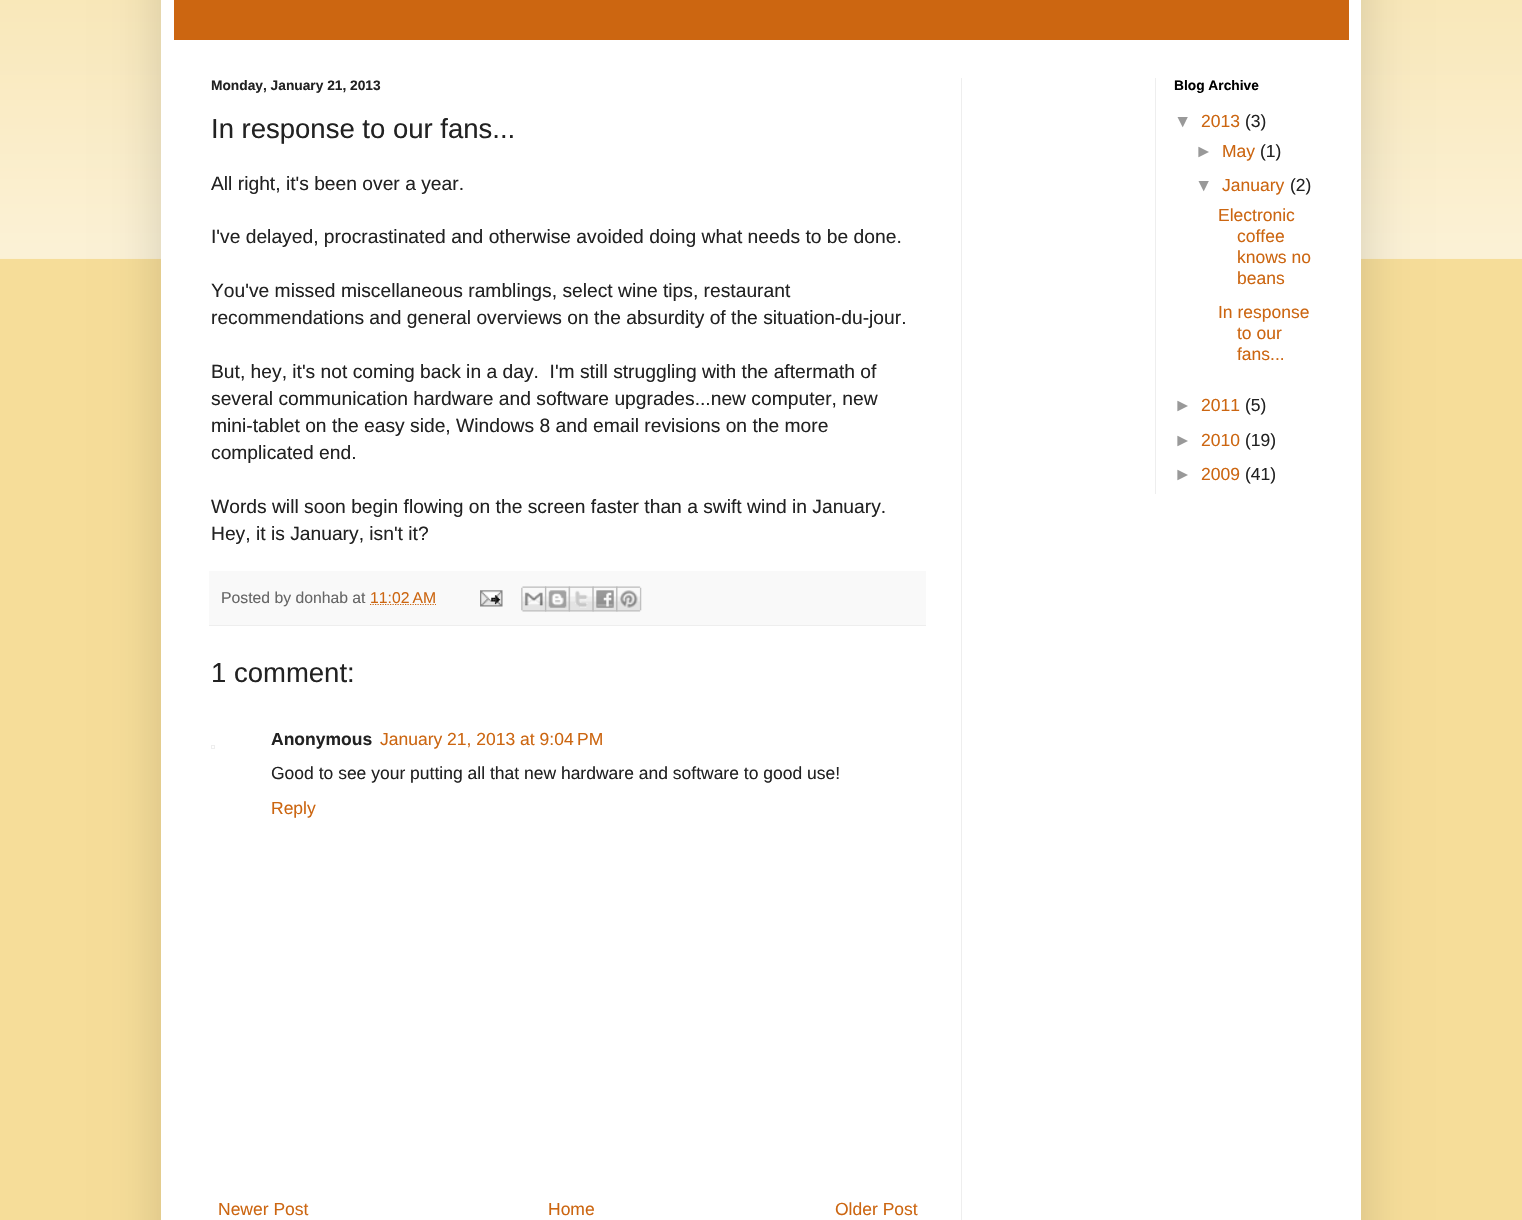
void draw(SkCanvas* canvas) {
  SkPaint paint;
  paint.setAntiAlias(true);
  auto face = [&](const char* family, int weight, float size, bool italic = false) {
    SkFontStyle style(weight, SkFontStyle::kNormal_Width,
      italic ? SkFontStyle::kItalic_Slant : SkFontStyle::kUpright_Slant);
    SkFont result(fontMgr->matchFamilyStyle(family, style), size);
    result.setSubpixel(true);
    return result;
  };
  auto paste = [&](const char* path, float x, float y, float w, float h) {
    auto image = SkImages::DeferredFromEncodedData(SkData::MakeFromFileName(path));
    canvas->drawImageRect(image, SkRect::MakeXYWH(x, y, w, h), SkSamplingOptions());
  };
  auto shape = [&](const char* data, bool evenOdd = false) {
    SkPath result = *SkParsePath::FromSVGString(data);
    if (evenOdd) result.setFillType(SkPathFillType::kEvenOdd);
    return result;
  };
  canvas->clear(0xfff6dd99);
  paste("img/1.png", 0, 0, 1522, 259);
  paint.setColor(0x26000000);
  paint.setMaskFilter(SkMaskFilter::MakeBlur(kNormal_SkBlurStyle, 25));
  canvas->drawRect(SkRect::MakeXYWH(161, -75, 1200, 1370), paint);
  paint.setMaskFilter(nullptr);
  {
    const struct { float x, y, w, h; SkColor color; } items[] = {
      {161, 0, 1200, 1220, 0xffffffff},
      {174, 0, 1175, 40, 0xffcc6611},
      {961, 78, 1, 1142, 0xffeeeeee},
      {209, 571, 717, 54, 0xfff9f9f9},
      {209, 625, 717, 1, 0xffeeeeee},
    };
    for (auto [x, y, w, h, color] : items) {
      paint.setColor(color);
      canvas->drawRect(SkRect::MakeXYWH(x, y, w, h), paint);
    }
  }
  paint.setStroke(true);
  paint.setStrokeWidth(1.2f);
  paint.setColor(0xffcc6611);
  paint.setPathEffect(SkDashPathEffect::Make({{1.25f, 1.25f}}, 0));
  canvas->drawPath(shape("M370 604.5H436"), paint);
  paint.setPathEffect(nullptr);
  paste("img/2.png", 480, 590, 23, 17);
  paste("img/3.png", 521, 586, 26, 26);
  paste("img/4.png", 545, 586, 25, 26);
  paste("img/5.png", 568, 586, 26, 26);
  paste("img/6.png", 592, 586, 26, 26);
  paste("img/7.png", 616, 586, 26, 26);
  paint.setStrokeWidth(1);
  paint.setColor(0xffeeeeee);
  canvas->drawRect(SkRect::MakeXYWH(211.5f, 745.5f, 3, 3), paint);
  paint.setStroke(false);
  canvas->drawRect(SkRect::MakeXYWH(1155, 78, 1, 416), paint);
  auto f0 = face("Liberation Sans", 700, 13.75f);
  paint.setColor(0xff222222);
  canvas->drawString("Monday, January 21, 2013", 211, 90, f0, paint);
  auto f1 = face("Liberation Sans", 400, 27.5f);
  canvas->drawString("In response to our fans...", 211, 138, f1, paint);
  auto f2 = face("Liberation Sans", 400, 19.25f);
  {
    const struct { const char* s; float x, y; } items[] = {
      {"All right, it's been over a year.", 211, 190},
      {"I've delayed, procrastinated and otherwise avoided doing what needs to be done.", 211, 243},
      {"You've missed miscellaneous ramblings, select wine tips, restaurant", 211, 297},
      {"recommendations and general overviews on the absurdity of the situation-du-jour.", 211, 324},
      {"But, hey, it's not coming back in a day.  I'm still struggling with the aftermath of", 211, 378},
      {"several communication hardware and software upgrades...new computer, new", 211, 405},
      {"mini-tablet on the easy side, Windows 8 and email revisions on the more", 211, 432},
      {"complicated end.", 211, 459},
      {"Words will soon begin flowing on the screen faster than a swift wind in January.", 211, 513},
      {"Hey, it is January, isn't it?", 211, 540},
    };
    for (auto [s, x, y] : items) {
      canvas->drawString(s, x, y, f2, paint);
    }
  }
  auto f3 = face("Liberation Sans", 400, 15.75f);
  paint.setColor(0xff666666);
  canvas->drawString("Posted by donhab at", 221, 603, f3, paint);
  paint.setColor(0xffcc6611);
  canvas->drawString("11:02 AM", 370, 603, f3, paint);
  paint.setColor(0xff222222);
  canvas->drawString("1 comment:", 211, 682, f1, paint);
  auto f4 = face("Liberation Sans", 700, 17.5f);
  canvas->drawString("Anonymous", 271, 745, f4, paint);
  auto f5 = face("Liberation Sans", 400, 17.5f);
  paint.setColor(0xffcc6611);
  canvas->drawString("January 21, 2013 at 9:04 PM", 380, 745, f5, paint);
  paint.setColor(0xff222222);
  canvas->drawString("Good to see your putting all that new hardware and software to good use!", 271, 779, f5, paint);
  paint.setColor(0xffcc6611);
  {
    const struct { const char* s; float x, y; } items[] = {
      {"Reply", 271, 814},
      {"Newer Post", 218, 1215},
      {"Home", 548, 1215},
      {"Older Post", 835, 1215},
    };
    for (auto [s, x, y] : items) {
      canvas->drawString(s, x, y, f5, paint);
    }
  }
  paint.setColor(0xff000000);
  canvas->drawString("Blog Archive", 1174, 90, f0, paint);
  paint.setColor(0xff999999);
  canvas->drawString("▼", 1174, 127, f5, paint);
  paint.setColor(0xffcc6611);
  canvas->drawString("2013", 1201, 127, f5, paint);
  paint.setColor(0xff222222);
  canvas->drawString("(3)", 1245, 127, f5, paint);
  paint.setColor(0xff999999);
  canvas->drawString("►", 1195, 157, f5, paint);
  paint.setColor(0xffcc6611);
  canvas->drawString("May", 1222, 157, f5, paint);
  paint.setColor(0xff222222);
  canvas->drawString("(1)", 1260, 157, f5, paint);
  paint.setColor(0xff999999);
  canvas->drawString("▼", 1195, 191, f5, paint);
  paint.setColor(0xffcc6611);
  canvas->drawString("January", 1222, 191, f5, paint);
  paint.setColor(0xff222222);
  canvas->drawString("(2)", 1290, 191, f5, paint);
  paint.setColor(0xffcc6611);
  {
    const struct { const char* s; float x, y; } items[] = {
      {"Electronic", 1218, 221},
      {"coffee", 1237, 242},
      {"knows no", 1237, 263},
      {"beans", 1237, 284},
      {"In response", 1218, 318},
      {"to our", 1237, 339},
      {"fans...", 1237, 360},
    };
    for (auto [s, x, y] : items) {
      canvas->drawString(s, x, y, f5, paint);
    }
  }
  paint.setColor(0xff999999);
  canvas->drawString("►", 1174, 411, f5, paint);
  paint.setColor(0xffcc6611);
  canvas->drawString("2011", 1201, 411, f5, paint);
  paint.setColor(0xff222222);
  canvas->drawString("(5)", 1245, 411, f5, paint);
  paint.setColor(0xff999999);
  canvas->drawString("►", 1174, 446, f5, paint);
  paint.setColor(0xffcc6611);
  canvas->drawString("2010", 1201, 446, f5, paint);
  paint.setColor(0xff222222);
  canvas->drawString("(19)", 1245, 446, f5, paint);
  paint.setColor(0xff999999);
  canvas->drawString("►", 1174, 480, f5, paint);
  paint.setColor(0xffcc6611);
  canvas->drawString("2009", 1201, 480, f5, paint);
  paint.setColor(0xff222222);
  canvas->drawString("(41)", 1245, 480, f5, paint);
}
